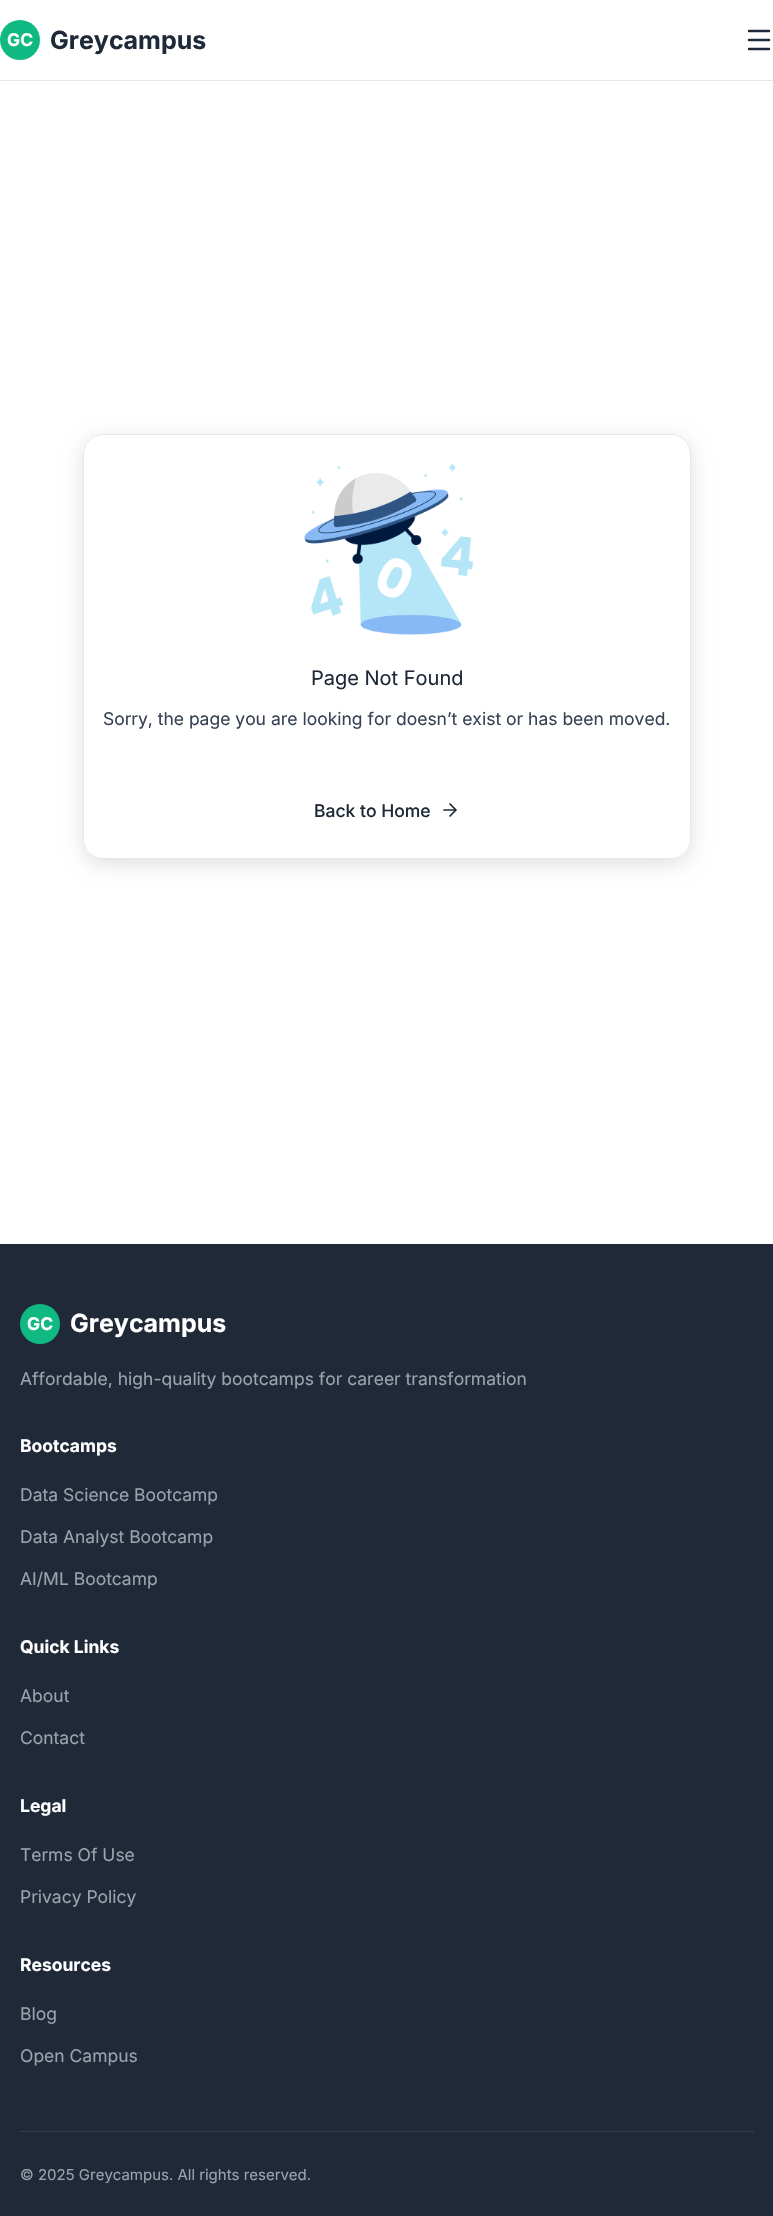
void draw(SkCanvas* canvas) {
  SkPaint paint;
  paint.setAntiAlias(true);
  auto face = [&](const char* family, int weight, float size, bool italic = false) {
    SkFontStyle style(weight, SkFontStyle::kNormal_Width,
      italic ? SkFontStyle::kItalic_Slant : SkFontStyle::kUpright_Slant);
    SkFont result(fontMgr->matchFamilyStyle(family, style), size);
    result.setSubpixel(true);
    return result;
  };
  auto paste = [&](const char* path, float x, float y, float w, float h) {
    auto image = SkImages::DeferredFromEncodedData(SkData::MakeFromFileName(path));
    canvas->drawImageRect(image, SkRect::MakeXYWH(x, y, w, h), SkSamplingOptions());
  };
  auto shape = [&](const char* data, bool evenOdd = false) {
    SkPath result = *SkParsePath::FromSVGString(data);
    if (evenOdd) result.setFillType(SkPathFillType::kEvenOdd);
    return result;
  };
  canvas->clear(0xffffffff);
  paint.setColor(0xffe5e7eb);
  canvas->drawRect(SkRect::MakeXYWH(0, 80, 773, 1), paint);
  paint.setColor(0xff10b981);
  canvas->drawCircle(20, 40, 20, paint);
  paint.setStroke(true);
  paint.setStrokeWidth(2.5f);
  paint.setStrokeCap(SkPaint::kRound_Cap);
  paint.setStrokeJoin(SkPaint::kRound_Join);
  paint.setColor(0xff1e2939);
  canvas->drawPath(shape("M749 31H769M749 40H769M749 49H769"), paint);
  canvas->save();
  canvas->clipPath(shape("M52 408H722V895H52ZM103 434H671C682 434 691 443 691 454V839C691 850 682 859 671 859H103C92 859 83 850 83 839V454C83 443 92 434 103 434Z", true), true);
  paint.setStroke(false);
  paint.setColor(0x1f000000);
  paint.setMaskFilter(SkMaskFilter::MakeBlur(kNormal_SkBlurStyle, 10));
  canvas->drawRoundRect(SkRect::MakeXYWH(83, 439, 608, 425), 20, 20, paint);
  paint.setMaskFilter(nullptr);
  canvas->restore();
  paint.setStroke(true);
  paint.setStrokeWidth(1);
  paint.setStrokeCap(SkPaint::kButt_Cap);
  paint.setStrokeJoin(SkPaint::kMiter_Join);
  paint.setColor(0xffe5e7eb);
  canvas->drawRoundRect(SkRect::MakeXYWH(83.5f, 434.5f, 607, 424), 19.5f, 19.5f, paint);
  paste("img/1.png", 304, 463, 170, 172);
  paint.setStrokeWidth(1.7f);
  paint.setStrokeCap(SkPaint::kRound_Cap);
  paint.setStrokeJoin(SkPaint::kRound_Join);
  paint.setColor(0xff1e2939);
  canvas->drawPath(shape("M444 810H456M450 804L456 810L450 816"), paint);
  paint.setStroke(false);
  paint.setColor(0xff1f2937);
  canvas->drawRect(SkRect::MakeXYWH(0, 1244, 773, 972), paint);
  paint.setColor(0xff10b981);
  canvas->drawCircle(40, 1324, 20, paint);
  paint.setColor(0xff353e4b);
  canvas->drawRect(SkRect::MakeXYWH(20, 2131, 734, 1), paint);
  auto f0 = face("Inter", 700, 17.5f);
  paint.setColor(0xffffffff);
  canvas->drawString("GC", 7, 46, f0, paint);
  auto f1 = face("Inter", 700, 25);
  paint.setColor(0xff1e2939);
  canvas->drawString("Greycampus", 50, 49, f1, paint);
  auto f2 = face("Inter", 400, 20);
  canvas->drawString("Page Not Found", 311, 685, f2, paint);
  auto f3 = face("Inter", 400, 17.5f);
  paint.setColor(0xff364153);
  canvas->drawString("Sorry, the page you are looking for doesn’t exist or has been moved.", 103, 725, f3, paint);
  auto f4 = face("Inter", 500, 17.5f);
  paint.setColor(0xff1e2939);
  canvas->drawString("Back to Home", 314, 817, f4, paint);
  paint.setColor(0xffffffff);
  canvas->drawString("GC", 27, 1330, f0, paint);
  canvas->drawString("Greycampus", 70, 1332, f1, paint);
  paint.setColor(0xff9ca3af);
  canvas->drawString("Affordable, high-quality bootcamps for career transformation", 20, 1385, f3, paint);
  paint.setColor(0xffffffff);
  canvas->drawString("Bootcamps", 20, 1452, f0, paint);
  paint.setColor(0xff9ca3af);
  {
    const struct { const char* s; float x, y; } items[] = {
      {"Data Science Bootcamp", 20, 1501},
      {"Data Analyst Bootcamp", 20, 1543},
      {"AI/ML Bootcamp", 20, 1585},
    };
    for (auto [s, x, y] : items) {
      canvas->drawString(s, x, y, f3, paint);
    }
  }
  paint.setColor(0xffffffff);
  canvas->drawString("Quick Links", 20, 1653, f0, paint);
  paint.setColor(0xff9ca3af);
  canvas->drawString("About", 20, 1702, f3, paint);
  canvas->drawString("Contact", 20, 1744, f3, paint);
  paint.setColor(0xffffffff);
  canvas->drawString("Legal", 20, 1812, f0, paint);
  paint.setColor(0xff9ca3af);
  canvas->drawString("Terms Of Use", 20, 1861, f3, paint);
  canvas->drawString("Privacy Policy", 20, 1903, f3, paint);
  paint.setColor(0xffffffff);
  canvas->drawString("Resources", 20, 1971, f0, paint);
  paint.setColor(0xff9ca3af);
  canvas->drawString("Blog", 20, 2020, f3, paint);
  canvas->drawString("Open Campus", 20, 2062, f3, paint);
  auto f5 = face("Inter", 400, 15);
  canvas->drawString("© 2025 Greycampus. All rights reserved.", 20, 2180, f5, paint);
}
